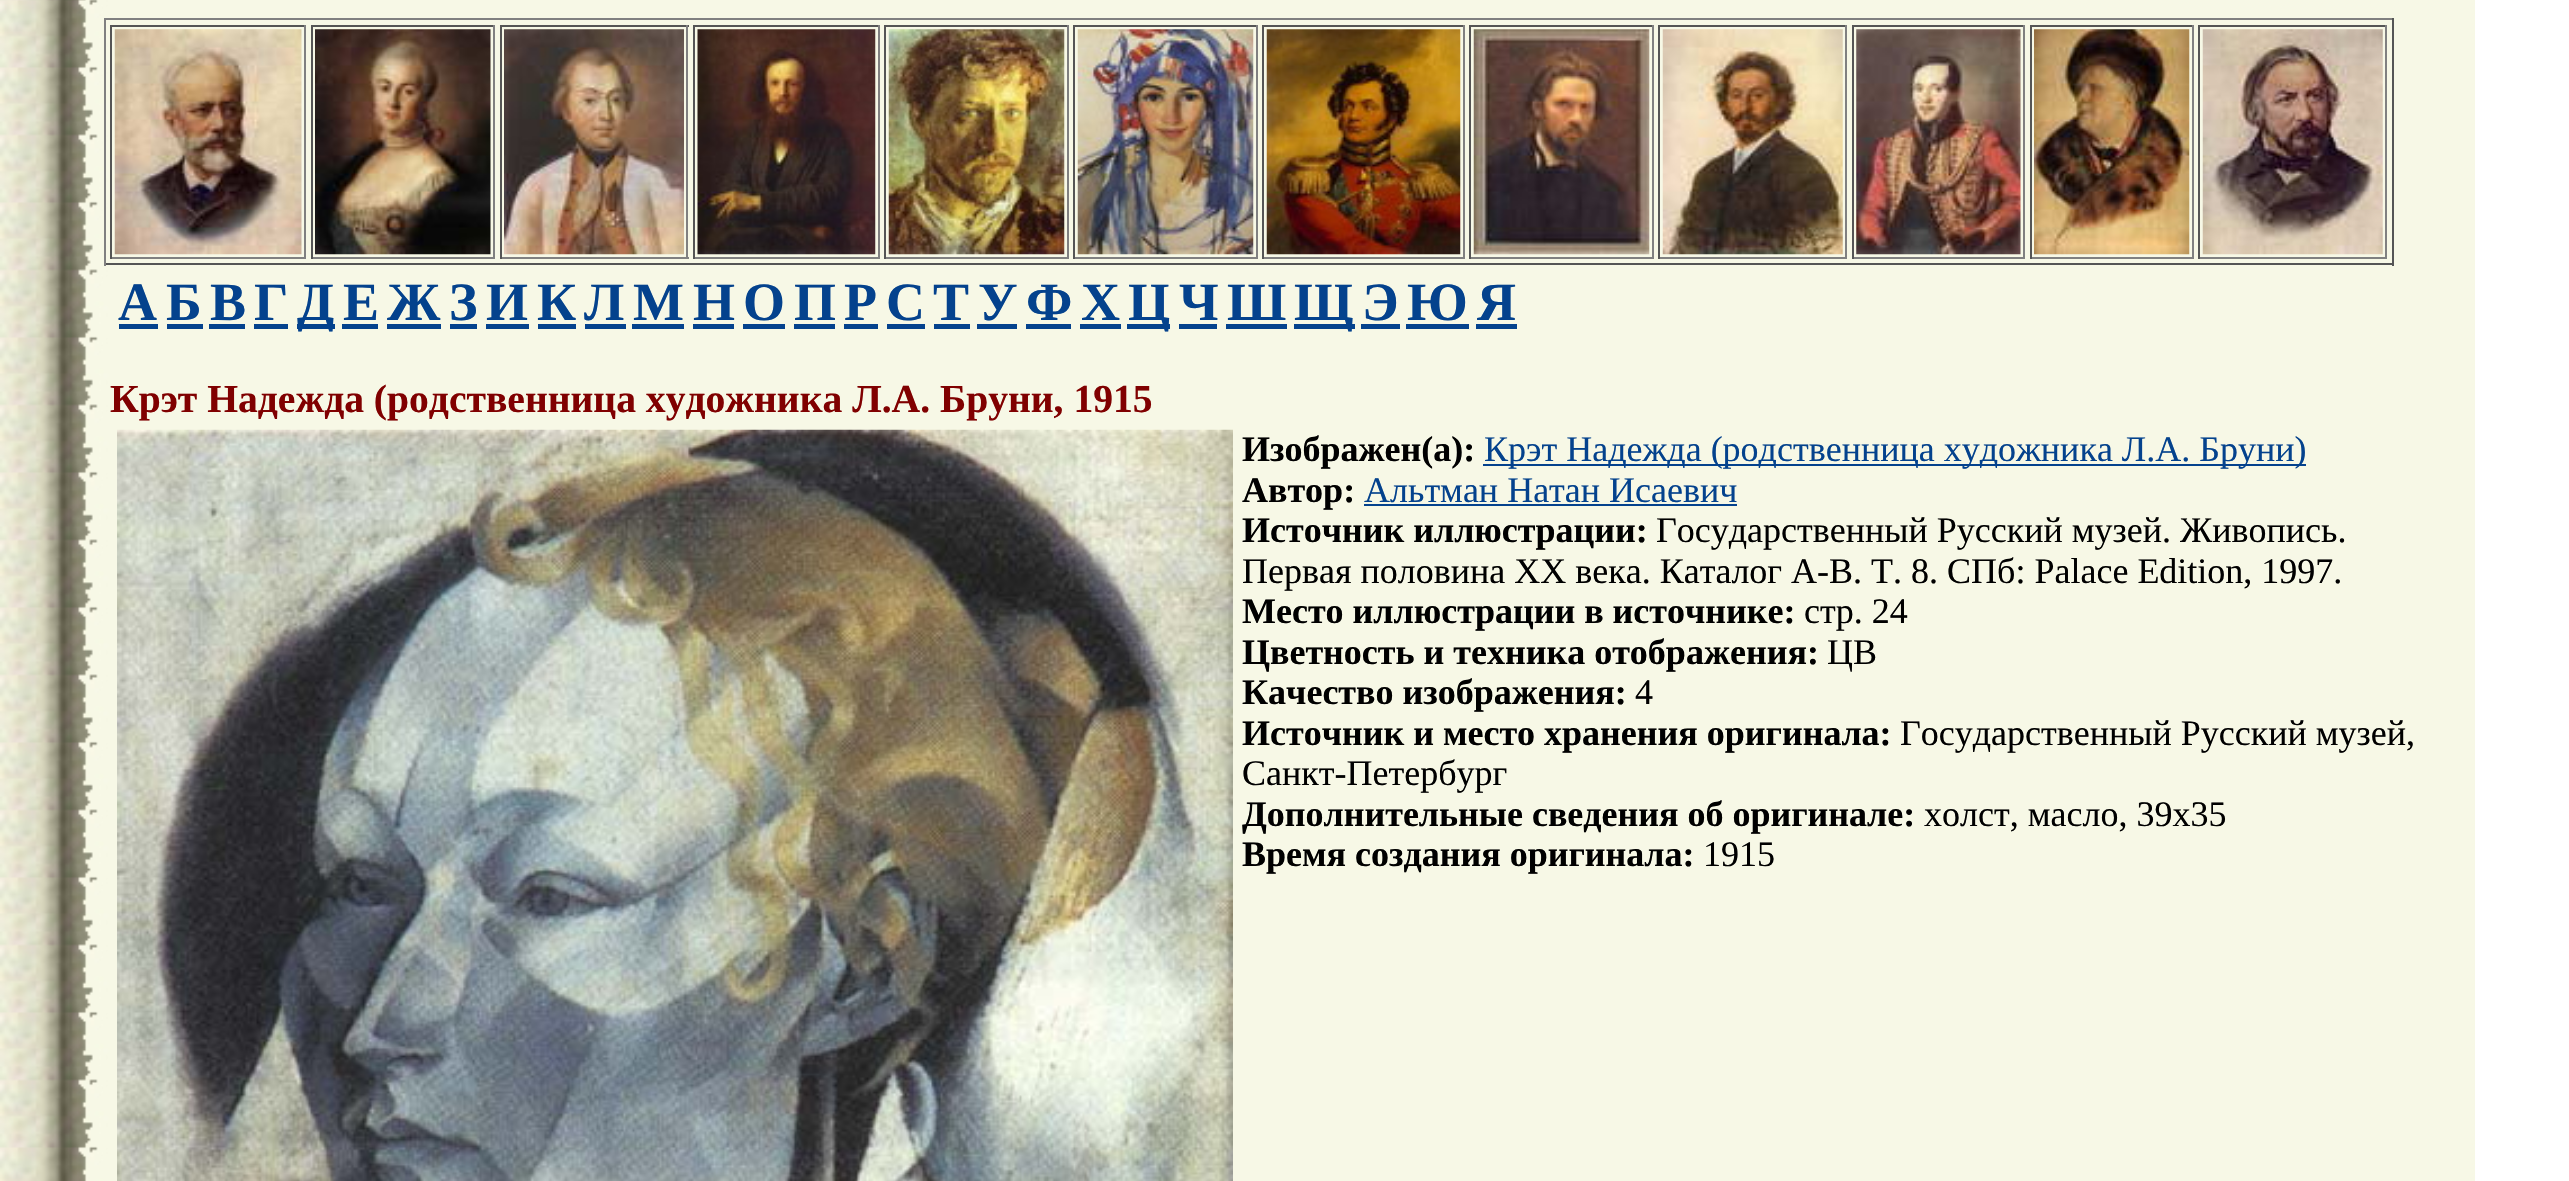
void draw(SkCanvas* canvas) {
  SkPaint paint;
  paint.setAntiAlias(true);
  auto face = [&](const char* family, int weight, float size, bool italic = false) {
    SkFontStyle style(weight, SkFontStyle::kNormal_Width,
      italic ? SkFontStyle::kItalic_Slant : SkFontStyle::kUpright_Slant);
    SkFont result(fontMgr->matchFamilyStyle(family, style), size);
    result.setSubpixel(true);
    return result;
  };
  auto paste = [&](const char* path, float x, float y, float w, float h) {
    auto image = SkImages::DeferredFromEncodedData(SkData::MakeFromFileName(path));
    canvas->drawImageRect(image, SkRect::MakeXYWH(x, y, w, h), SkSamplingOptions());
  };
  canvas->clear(0xffffffff);
  paste("img/1.png", 0, 0, 2475, 1181);
  {
    const struct { float x, y, w, h; SkColor color; } items[] = {
      {104, 18, 2290, 2, 0xff808080},
      {2392, 18, 2, 248, 0xff555555},
      {104, 263, 2290, 2, 0xff555555},
      {104, 18, 2, 248, 0xff808080},
      {110, 25, 196, 2, 0xff555555},
      {304, 25, 2, 234, 0xff808080},
      {110, 257, 196, 2, 0xff808080},
      {110, 25, 2, 234, 0xff555555},
    };
    for (auto [x, y, w, h, color] : items) {
      paint.setColor(color);
      canvas->drawRect(SkRect::MakeXYWH(x, y, w, h), paint);
    }
  }
  paste("img/2.png", 114, 29, 188, 226);
  {
    const struct { float x, y, w, h; SkColor color; } items[] = {
      {311, 25, 184, 2, 0xff555555},
      {493, 25, 2, 234, 0xff808080},
      {311, 257, 184, 2, 0xff808080},
      {311, 25, 2, 234, 0xff555555},
    };
    for (auto [x, y, w, h, color] : items) {
      paint.setColor(color);
      canvas->drawRect(SkRect::MakeXYWH(x, y, w, h), paint);
    }
  }
  paste("img/3.png", 315, 29, 176, 226);
  {
    const struct { float x, y, w, h; SkColor color; } items[] = {
      {500, 25, 189, 2, 0xff555555},
      {686, 25, 2, 234, 0xff808080},
      {500, 257, 189, 2, 0xff808080},
      {500, 25, 2, 234, 0xff555555},
    };
    for (auto [x, y, w, h, color] : items) {
      paint.setColor(color);
      canvas->drawRect(SkRect::MakeXYWH(x, y, w, h), paint);
    }
  }
  paste("img/4.png", 504, 29, 180, 226);
  {
    const struct { float x, y, w, h; SkColor color; } items[] = {
      {693, 25, 187, 2, 0xff555555},
      {878, 25, 2, 234, 0xff808080},
      {693, 257, 187, 2, 0xff808080},
      {693, 25, 2, 234, 0xff555555},
    };
    for (auto [x, y, w, h, color] : items) {
      paint.setColor(color);
      canvas->drawRect(SkRect::MakeXYWH(x, y, w, h), paint);
    }
  }
  paste("img/5.png", 697, 29, 179, 226);
  {
    const struct { float x, y, w, h; SkColor color; } items[] = {
      {884, 25, 185, 2, 0xff555555},
      {1067, 25, 2, 234, 0xff808080},
      {884, 257, 185, 2, 0xff808080},
      {884, 25, 2, 234, 0xff555555},
    };
    for (auto [x, y, w, h, color] : items) {
      paint.setColor(color);
      canvas->drawRect(SkRect::MakeXYWH(x, y, w, h), paint);
    }
  }
  paste("img/6.png", 888, 29, 177, 226);
  {
    const struct { float x, y, w, h; SkColor color; } items[] = {
      {1073, 25, 185, 2, 0xff555555},
      {1256, 25, 2, 234, 0xff808080},
      {1073, 257, 185, 2, 0xff808080},
      {1073, 25, 2, 234, 0xff555555},
    };
    for (auto [x, y, w, h, color] : items) {
      paint.setColor(color);
      canvas->drawRect(SkRect::MakeXYWH(x, y, w, h), paint);
    }
  }
  paste("img/7.png", 1077, 29, 177, 226);
  {
    const struct { float x, y, w, h; SkColor color; } items[] = {
      {1262, 25, 203, 2, 0xff555555},
      {1463, 25, 2, 234, 0xff808080},
      {1262, 257, 203, 2, 0xff808080},
      {1262, 25, 2, 234, 0xff555555},
    };
    for (auto [x, y, w, h, color] : items) {
      paint.setColor(color);
      canvas->drawRect(SkRect::MakeXYWH(x, y, w, h), paint);
    }
  }
  paste("img/8.png", 1266, 29, 195, 226);
  {
    const struct { float x, y, w, h; SkColor color; } items[] = {
      {1469, 25, 185, 2, 0xff555555},
      {1652, 25, 2, 234, 0xff808080},
      {1469, 257, 185, 2, 0xff808080},
      {1469, 25, 2, 234, 0xff555555},
    };
    for (auto [x, y, w, h, color] : items) {
      paint.setColor(color);
      canvas->drawRect(SkRect::MakeXYWH(x, y, w, h), paint);
    }
  }
  paste("img/9.png", 1473, 29, 177, 226);
  {
    const struct { float x, y, w, h; SkColor color; } items[] = {
      {1658, 25, 189, 2, 0xff555555},
      {1845, 25, 2, 234, 0xff808080},
      {1658, 257, 189, 2, 0xff808080},
      {1658, 25, 2, 234, 0xff555555},
    };
    for (auto [x, y, w, h, color] : items) {
      paint.setColor(color);
      canvas->drawRect(SkRect::MakeXYWH(x, y, w, h), paint);
    }
  }
  paste("img/10.png", 1662, 29, 181, 226);
  {
    const struct { float x, y, w, h; SkColor color; } items[] = {
      {1852, 25, 173, 2, 0xff555555},
      {2023, 25, 2, 234, 0xff808080},
      {1852, 257, 173, 2, 0xff808080},
      {1852, 25, 2, 234, 0xff555555},
    };
    for (auto [x, y, w, h, color] : items) {
      paint.setColor(color);
      canvas->drawRect(SkRect::MakeXYWH(x, y, w, h), paint);
    }
  }
  paste("img/11.png", 1856, 29, 165, 226);
  {
    const struct { float x, y, w, h; SkColor color; } items[] = {
      {2030, 25, 164, 2, 0xff555555},
      {2192, 25, 2, 234, 0xff808080},
      {2030, 257, 164, 2, 0xff808080},
      {2030, 25, 2, 234, 0xff555555},
    };
    for (auto [x, y, w, h, color] : items) {
      paint.setColor(color);
      canvas->drawRect(SkRect::MakeXYWH(x, y, w, h), paint);
    }
  }
  paste("img/12.png", 2034, 29, 156, 226);
  {
    const struct { float x, y, w, h; SkColor color; } items[] = {
      {2198, 25, 189, 2, 0xff555555},
      {2385, 25, 2, 234, 0xff808080},
      {2198, 257, 189, 2, 0xff808080},
      {2198, 25, 2, 234, 0xff555555},
    };
    for (auto [x, y, w, h, color] : items) {
      paint.setColor(color);
      canvas->drawRect(SkRect::MakeXYWH(x, y, w, h), paint);
    }
  }
  paste("img/13.png", 2202, 29, 181, 226);
  {
    const struct { float x, y, w, h; SkColor color; } items[] = {
      {119, 324, 39, 5, 0xff04428d},
      {167, 324, 36, 5, 0xff04428d},
      {209, 324, 36, 5, 0xff04428d},
      {254, 324, 34, 5, 0xff04428d},
      {297, 324, 38, 5, 0xff04428d},
      {342, 324, 36, 5, 0xff04428d},
      {387, 324, 54, 5, 0xff04428d},
      {450, 324, 27, 5, 0xff04428d},
      {486, 324, 43, 5, 0xff04428d},
      {538, 324, 38, 5, 0xff04428d},
      {585, 324, 41, 5, 0xff04428d},
      {632, 324, 52, 5, 0xff04428d},
      {693, 324, 41, 5, 0xff04428d},
      {743, 324, 42, 5, 0xff04428d},
      {794, 324, 41, 5, 0xff04428d},
      {844, 324, 34, 5, 0xff04428d},
      {887, 324, 38, 5, 0xff04428d},
      {934, 324, 36, 5, 0xff04428d},
      {977, 324, 40, 5, 0xff04428d},
      {1026, 324, 45, 5, 0xff04428d},
      {1080, 324, 41, 5, 0xff04428d},
      {1127, 324, 43, 5, 0xff04428d},
      {1179, 324, 38, 5, 0xff04428d},
      {1226, 324, 61, 5, 0xff04428d},
      {1294, 324, 61, 5, 0xff04428d},
      {1361, 324, 39, 5, 0xff04428d},
      {1406, 324, 63, 5, 0xff04428d},
      {1476, 324, 41, 5, 0xff04428d},
    };
    for (auto [x, y, w, h, color] : items) {
      paint.setColor(color);
      canvas->drawRect(SkRect::MakeXYWH(x, y, w, h), paint);
    }
  }
  paste("img/14.png", 117, 429, 1116, 752);
  canvas->drawRect(SkRect::MakeXYWH(1483, 464, 823, 2), paint);
  canvas->drawRect(SkRect::MakeXYWH(1364, 504, 373, 2), paint);
  auto f0 = face("Liberation Serif", 700, 54);
  {
    const struct { const char* s; float x, y; } items[] = {
      {"А", 118, 320},
      {"Б", 166, 320},
      {"В", 210, 320},
      {"Г", 254, 320},
      {"Д", 297, 320},
      {"Е", 343, 320},
      {"Ж", 387, 320},
      {"З", 449, 320},
      {"И", 486, 320},
      {"К", 537, 320},
      {"Л", 584, 320},
      {"М", 633, 320},
      {"Н", 693, 320},
      {"О", 743, 320},
      {"П", 794, 320},
      {"Р", 844, 320},
      {"С", 886, 320},
      {"Т", 933, 320},
      {"У", 978, 320},
      {"Ф", 1026, 320},
      {"Х", 1081, 320},
      {"Ц", 1128, 320},
      {"Ч", 1179, 320},
      {"Ш", 1227, 320},
      {"Щ", 1294, 320},
      {"Э", 1362, 320},
      {"Ю", 1407, 320},
      {"Я", 1477, 320},
    };
    for (auto [s, x, y] : items) {
      canvas->drawString(s, x, y, f0, paint);
    }
  }
  auto f1 = face("Liberation Serif", 700, 39.6f);
  paint.setColor(0xff800000);
  canvas->drawString("Крэт Надежда (родственница художника Л.А. Бруни, 1915", 110, 412, f1, paint);
  auto f2 = face("Liberation Serif", 700, 36);
  paint.setColor(0xff000000);
  canvas->drawString("Изображен(а):", 1242, 461, f2, paint);
  auto f3 = face("Liberation Serif", 400, 36);
  paint.setColor(0xff04428d);
  canvas->drawString("Крэт Надежда (родственница художника Л.А. Бруни)", 1484, 461, f3, paint);
  paint.setColor(0xff000000);
  canvas->drawString("Автор:", 1242, 502, f2, paint);
  paint.setColor(0xff04428d);
  canvas->drawString("Альтман Натан Исаевич", 1364, 502, f3, paint);
  paint.setColor(0xff000000);
  canvas->drawString("Источник иллюстрации:", 1242, 542, f2, paint);
  canvas->drawString("Государственный Русский музей. Живопись.", 1656, 542, f3, paint);
  canvas->drawString("Первая половина XX века. Каталог А-В. Т. 8. СПб: Palace Edition, 1997.", 1242, 583, f3, paint);
  canvas->drawString("Место иллюстрации в источнике:", 1242, 623, f2, paint);
  canvas->drawString("стр. 24", 1804, 623, f3, paint);
  canvas->drawString("Цветность и техника отображения:", 1242, 664, f2, paint);
  canvas->drawString("ЦВ", 1827, 664, f3, paint);
  canvas->drawString("Качество изображения:", 1242, 704, f2, paint);
  canvas->drawString("4", 1635, 704, f3, paint);
  canvas->drawString("Источник и место хранения оригинала:", 1242, 745, f2, paint);
  canvas->drawString("Государственный Русский музей,", 1900, 745, f3, paint);
  canvas->drawString("Санкт-Петербург", 1242, 785, f3, paint);
  canvas->drawString("Дополнительные сведения об оригинале:", 1242, 826, f2, paint);
  canvas->drawString("холст, масло, 39х35", 1924, 826, f3, paint);
  canvas->drawString("Время создания оригинала:", 1242, 866, f2, paint);
  canvas->drawString("1915", 1703, 866, f3, paint);
}
